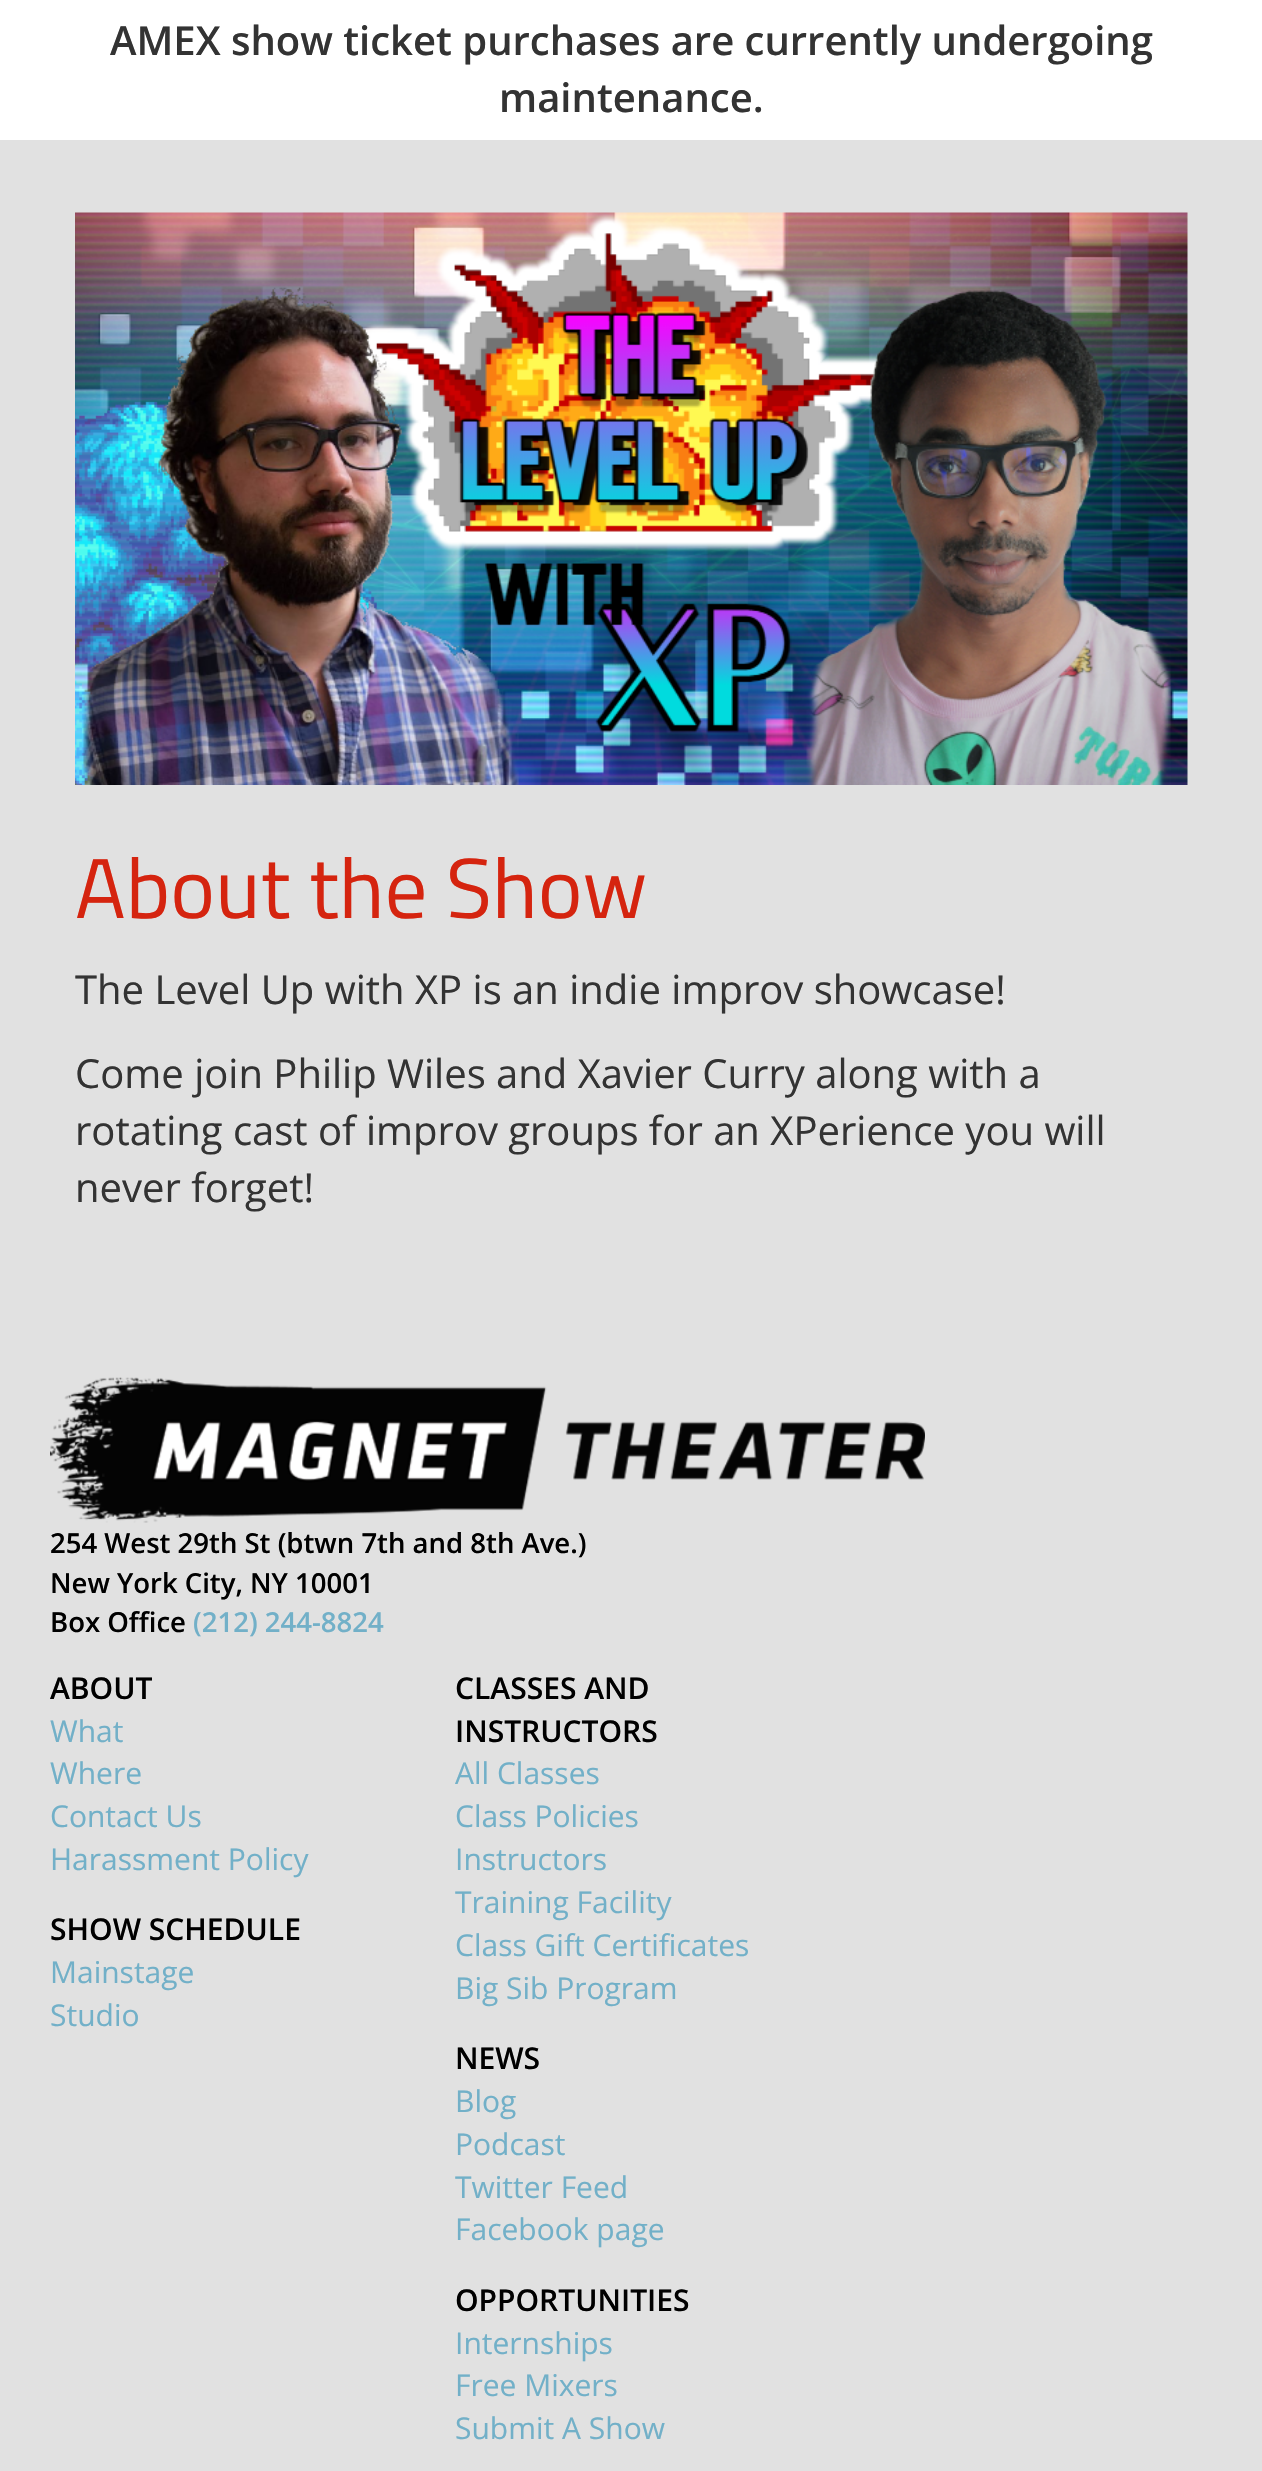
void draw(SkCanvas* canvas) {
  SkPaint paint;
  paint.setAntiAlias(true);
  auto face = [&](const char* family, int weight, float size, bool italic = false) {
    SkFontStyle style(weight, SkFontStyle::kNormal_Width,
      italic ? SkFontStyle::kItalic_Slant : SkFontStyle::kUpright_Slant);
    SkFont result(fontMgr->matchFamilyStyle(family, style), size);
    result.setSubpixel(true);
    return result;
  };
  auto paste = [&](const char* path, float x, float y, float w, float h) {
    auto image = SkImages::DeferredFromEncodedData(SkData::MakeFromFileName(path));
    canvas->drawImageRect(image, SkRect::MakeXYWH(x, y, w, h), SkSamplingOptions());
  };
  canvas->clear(0xffe1e1e1);
  paint.setColor(0xffffffff);
  canvas->drawRect(SkRect::MakeXYWH(0, 0, 1262, 140), paint);
  paste("img/1.png", 75, 212, 1113, 573);
  paste("img/2.png", 50, 1377, 875, 146);
  auto f0 = face("Open Sans", 600, 40);
  paint.setColor(0xff333333);
  canvas->drawString("AMEX show ticket purchases are currently undergoing", 110, 55, f0, paint);
  canvas->drawString("maintenance.", 499, 112, f0, paint);
  auto f1 = face("Titillium Web", 400, 85);
  paint.setColor(0xffd5240f);
  canvas->drawString("About the Show", 75, 918, f1, paint);
  auto f2 = face("Open Sans", 400, 40);
  paint.setColor(0xff333333);
  {
    const struct { const char* s; float x, y; } items[] = {
      {"The Level Up with XP is an indie improv showcase!", 75, 1004},
      {"Come join Philip Wiles and Xavier Curry along with a", 75, 1088},
      {"rotating cast of improv groups for an XPerience you will", 75, 1145},
      {"never forget!", 75, 1202},
    };
    for (auto [s, x, y] : items) {
      canvas->drawString(s, x, y, f2, paint);
    }
  }
  auto f3 = face("Open Sans", 600, 27.5f);
  paint.setColor(0xff000000);
  {
    const struct { const char* s; float x, y; } items[] = {
      {"254 West 29th St (btwn 7th and 8th Ave.)", 50, 1553},
      {"New York City, NY 10001", 50, 1593},
      {"Box Office", 50, 1632},
    };
    for (auto [s, x, y] : items) {
      canvas->drawString(s, x, y, f3, paint);
    }
  }
  paint.setColor(0xff72b0c8);
  canvas->drawString("(212) 244-8824", 193, 1632, f3, paint);
  auto f4 = face("Open Sans", 600, 30);
  paint.setColor(0xff000000);
  canvas->drawString("ABOUT", 50, 1699, f4, paint);
  auto f5 = face("Open Sans", 400, 30);
  paint.setColor(0xff72b0c8);
  {
    const struct { const char* s; float x, y; } items[] = {
      {"What", 50, 1742},
      {"Where", 50, 1784},
      {"Contact Us", 50, 1827},
      {"Harassment Policy", 50, 1870},
    };
    for (auto [s, x, y] : items) {
      canvas->drawString(s, x, y, f5, paint);
    }
  }
  paint.setColor(0xff000000);
  canvas->drawString("SHOW SCHEDULE", 50, 1940, f4, paint);
  paint.setColor(0xff72b0c8);
  canvas->drawString("Mainstage", 50, 1983, f5, paint);
  canvas->drawString("Studio", 50, 2026, f5, paint);
  paint.setColor(0xff000000);
  canvas->drawString("CLASSES AND", 455, 1699, f4, paint);
  canvas->drawString("INSTRUCTORS", 455, 1742, f4, paint);
  paint.setColor(0xff72b0c8);
  {
    const struct { const char* s; float x, y; } items[] = {
      {"All Classes", 455, 1784},
      {"Class Policies", 455, 1827},
      {"Instructors", 455, 1870},
      {"Training Facility", 455, 1913},
      {"Class Gift Certificates", 455, 1956},
      {"Big Sib Program", 455, 1999},
    };
    for (auto [s, x, y] : items) {
      canvas->drawString(s, x, y, f5, paint);
    }
  }
  paint.setColor(0xff000000);
  canvas->drawString("NEWS", 455, 2069, f4, paint);
  paint.setColor(0xff72b0c8);
  {
    const struct { const char* s; float x, y; } items[] = {
      {"Blog", 455, 2112},
      {"Podcast", 455, 2155},
      {"Twitter Feed", 455, 2198},
      {"Facebook page", 455, 2240},
    };
    for (auto [s, x, y] : items) {
      canvas->drawString(s, x, y, f5, paint);
    }
  }
  paint.setColor(0xff000000);
  canvas->drawString("OPPORTUNITIES", 455, 2311, f4, paint);
  paint.setColor(0xff72b0c8);
  {
    const struct { const char* s; float x, y; } items[] = {
      {"Internships", 455, 2354},
      {"Free Mixers", 455, 2396},
      {"Submit A Show", 455, 2439},
    };
    for (auto [s, x, y] : items) {
      canvas->drawString(s, x, y, f5, paint);
    }
  }
}
